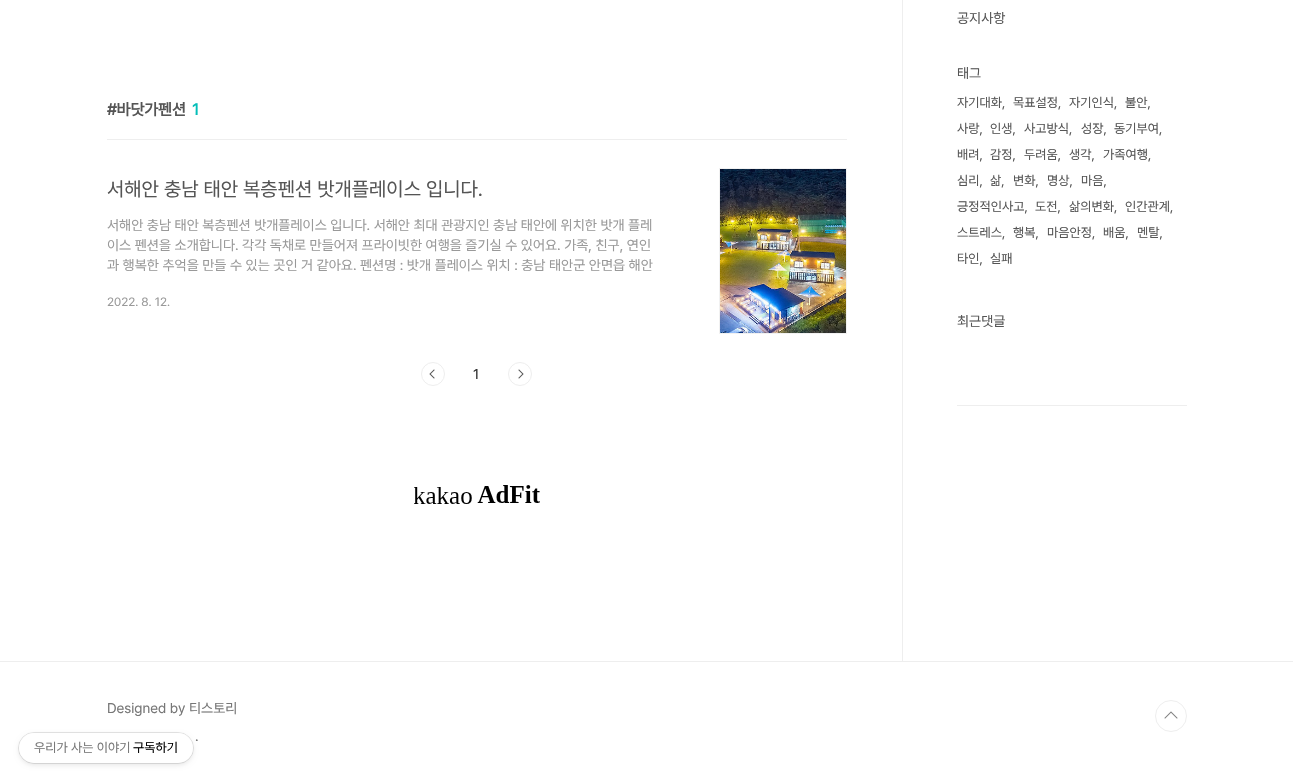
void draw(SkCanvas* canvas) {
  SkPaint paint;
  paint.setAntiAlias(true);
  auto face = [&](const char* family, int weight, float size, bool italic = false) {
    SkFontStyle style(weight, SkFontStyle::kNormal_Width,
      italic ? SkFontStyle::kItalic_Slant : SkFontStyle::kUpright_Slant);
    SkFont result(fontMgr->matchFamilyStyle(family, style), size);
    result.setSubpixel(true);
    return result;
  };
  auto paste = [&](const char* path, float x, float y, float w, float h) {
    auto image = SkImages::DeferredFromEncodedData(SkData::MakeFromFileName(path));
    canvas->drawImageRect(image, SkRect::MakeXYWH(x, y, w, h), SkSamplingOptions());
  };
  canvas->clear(0xffffffff);
  paint.setColor(0xffeeeeee);
  canvas->drawRect(SkRect::MakeXYWH(107, 139, 740, 1), paint);
  paint.setStroke(true);
  paint.setStrokeWidth(1);
  paint.setColor(0xfff1f1f1);
  canvas->drawRect(SkRect::MakeXYWH(719.5f, 168.5f, 127, 165), paint);
  paste("img/1.png", 720, 169, 126, 164);
  paste("img/2.png", 429, 369, 6, 10);
  paint.setColor(0xffeeeeee);
  canvas->drawCircle(433, 374, 11.5f, paint);
  paste("img/3.png", 518, 369, 6, 10);
  canvas->drawCircle(520, 374, 11.5f, paint);
  paste("img/4.png", 414, 485, 126, 19);
  paint.setStroke(false);
  {
    const struct { float x, y, w, h; SkColor color; } items[] = {
      {902, 0, 1, 661, 0xffeeeeee},
      {957, 405, 230, 1, 0xffeeeeee},
      {0, 661, 1293, 1, 0xffeeeeee},
    };
    for (auto [x, y, w, h, color] : items) {
      paint.setColor(color);
      canvas->drawRect(SkRect::MakeXYWH(x, y, w, h), paint);
    }
  }
  paste("img/5.png", 1164, 711, 14, 8);
  paint.setStroke(true);
  canvas->drawCircle(1171, 716, 15.5f, paint);
  paint.setStroke(false);
  paint.setColor(0x1a000000);
  paint.setMaskFilter(SkMaskFilter::MakeBlur(kNormal_SkBlurStyle, 2.5f));
  canvas->drawRoundRect(SkRect::MakeXYWH(19, 735, 174, 30), 15, 15, paint);
  paint.setMaskFilter(nullptr);
  paint.setStroke(true);
  canvas->drawRoundRect(SkRect::MakeXYWH(18.5f, 732.5f, 175, 31), 15.5f, 15.5f, paint);
  paint.setStroke(false);
  paint.setColor(0xffffffff);
  canvas->drawRoundRect(SkRect::MakeXYWH(19, 733, 174, 30), 15, 15, paint);
  auto f0 = face("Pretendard", 700, 16);
  paint.setColor(0xff555555);
  canvas->drawString("#바닷가펜션", 107, 115, f0, paint);
  paint.setColor(0xff04beb8);
  canvas->drawString("1", 192, 115, f0, paint);
  auto f1 = face("Pretendard", 400, 20);
  paint.setColor(0xff555555);
  canvas->drawString("서해안 충남 태안 복층펜션 밧개플레이스 입니다.", 107, 196, f1, paint);
  auto f2 = face("Pretendard", 400, 14);
  paint.setColor(0xff999999);
  {
    const struct { const char* s; float x, y; } items[] = {
      {"서해안 충남 태안 복층펜션 밧개플레이스 입니다. 서해안 최대 관광지인 충남 태안에 위치한 밧개 플레", 107, 230},
      {"이스 펜션을 소개합니다. 각각 독채로 만들어져 프라이빗한 여행을 즐기실 수 있어요. 가족, 친구, 연인", 107, 250},
      {"과 행복한 추억을 만들 수 있는 곳인 거 같아요. 펜션명 : 밧개 플레이스 위치 : 충남 태안군 안면읍 해안", 107, 270},
    };
    for (auto [s, x, y] : items) {
      canvas->drawString(s, x, y, f2, paint);
    }
  }
  auto f3 = face("Pretendard", 400, 12);
  canvas->drawString("2022. 8. 12.", 107, 306, f3, paint);
  paint.setColor(0xff333333);
  canvas->drawString("1", 473, 379, f2, paint);
  paint.setColor(0xff555555);
  canvas->drawString("공지사항", 957, 23, f2, paint);
  canvas->drawString("태그", 957, 78, f2, paint);
  auto f4 = face("Pretendard", 400, 13);
  {
    const struct { const char* s; float x, y; } items[] = {
      {"자기대화,", 957, 107},
      {"목표설정,", 1013, 107},
      {"자기인식,", 1069, 107},
      {"불안,", 1125, 107},
      {"사랑,", 957, 133},
      {"인생,", 990, 133},
      {"사고방식,", 1024, 133},
      {"성장,", 1081, 133},
      {"동기부여,", 1114, 133},
      {"배려,", 957, 159},
      {"감정,", 990, 159},
      {"두려움,", 1024, 159},
      {"생각,", 1069, 159},
      {"가족여행,", 1103, 159},
      {"심리,", 957, 185},
      {"삶,", 990, 185},
      {"변화,", 1013, 185},
      {"명상,", 1047, 185},
      {"마음,", 1081, 185},
      {"긍정적인사고,", 957, 211},
      {"도전,", 1035, 211},
      {"삶의변화,", 1069, 211},
      {"인간관계,", 1125, 211},
      {"스트레스,", 957, 237},
      {"행복,", 1013, 237},
      {"마음안정,", 1047, 237},
      {"배움,", 1103, 237},
      {"멘탈,", 1137, 237},
      {"타인,", 957, 263},
      {"실패", 990, 263},
    };
    for (auto [s, x, y] : items) {
      canvas->drawString(s, x, y, f4, paint);
    }
  }
  canvas->drawString("최근댓글", 957, 326, f2, paint);
  paint.setColor(0xff777777);
  canvas->drawString("Designed by 티스토리", 107, 713, f2, paint);
  canvas->drawString(".", 195, 741, f2, paint);
  canvas->drawString("우리가 사는 이야기", 34, 752, f4, paint);
  paint.setColor(0xff000000);
  canvas->drawString("구독하기", 133, 752, f4, paint);
}
